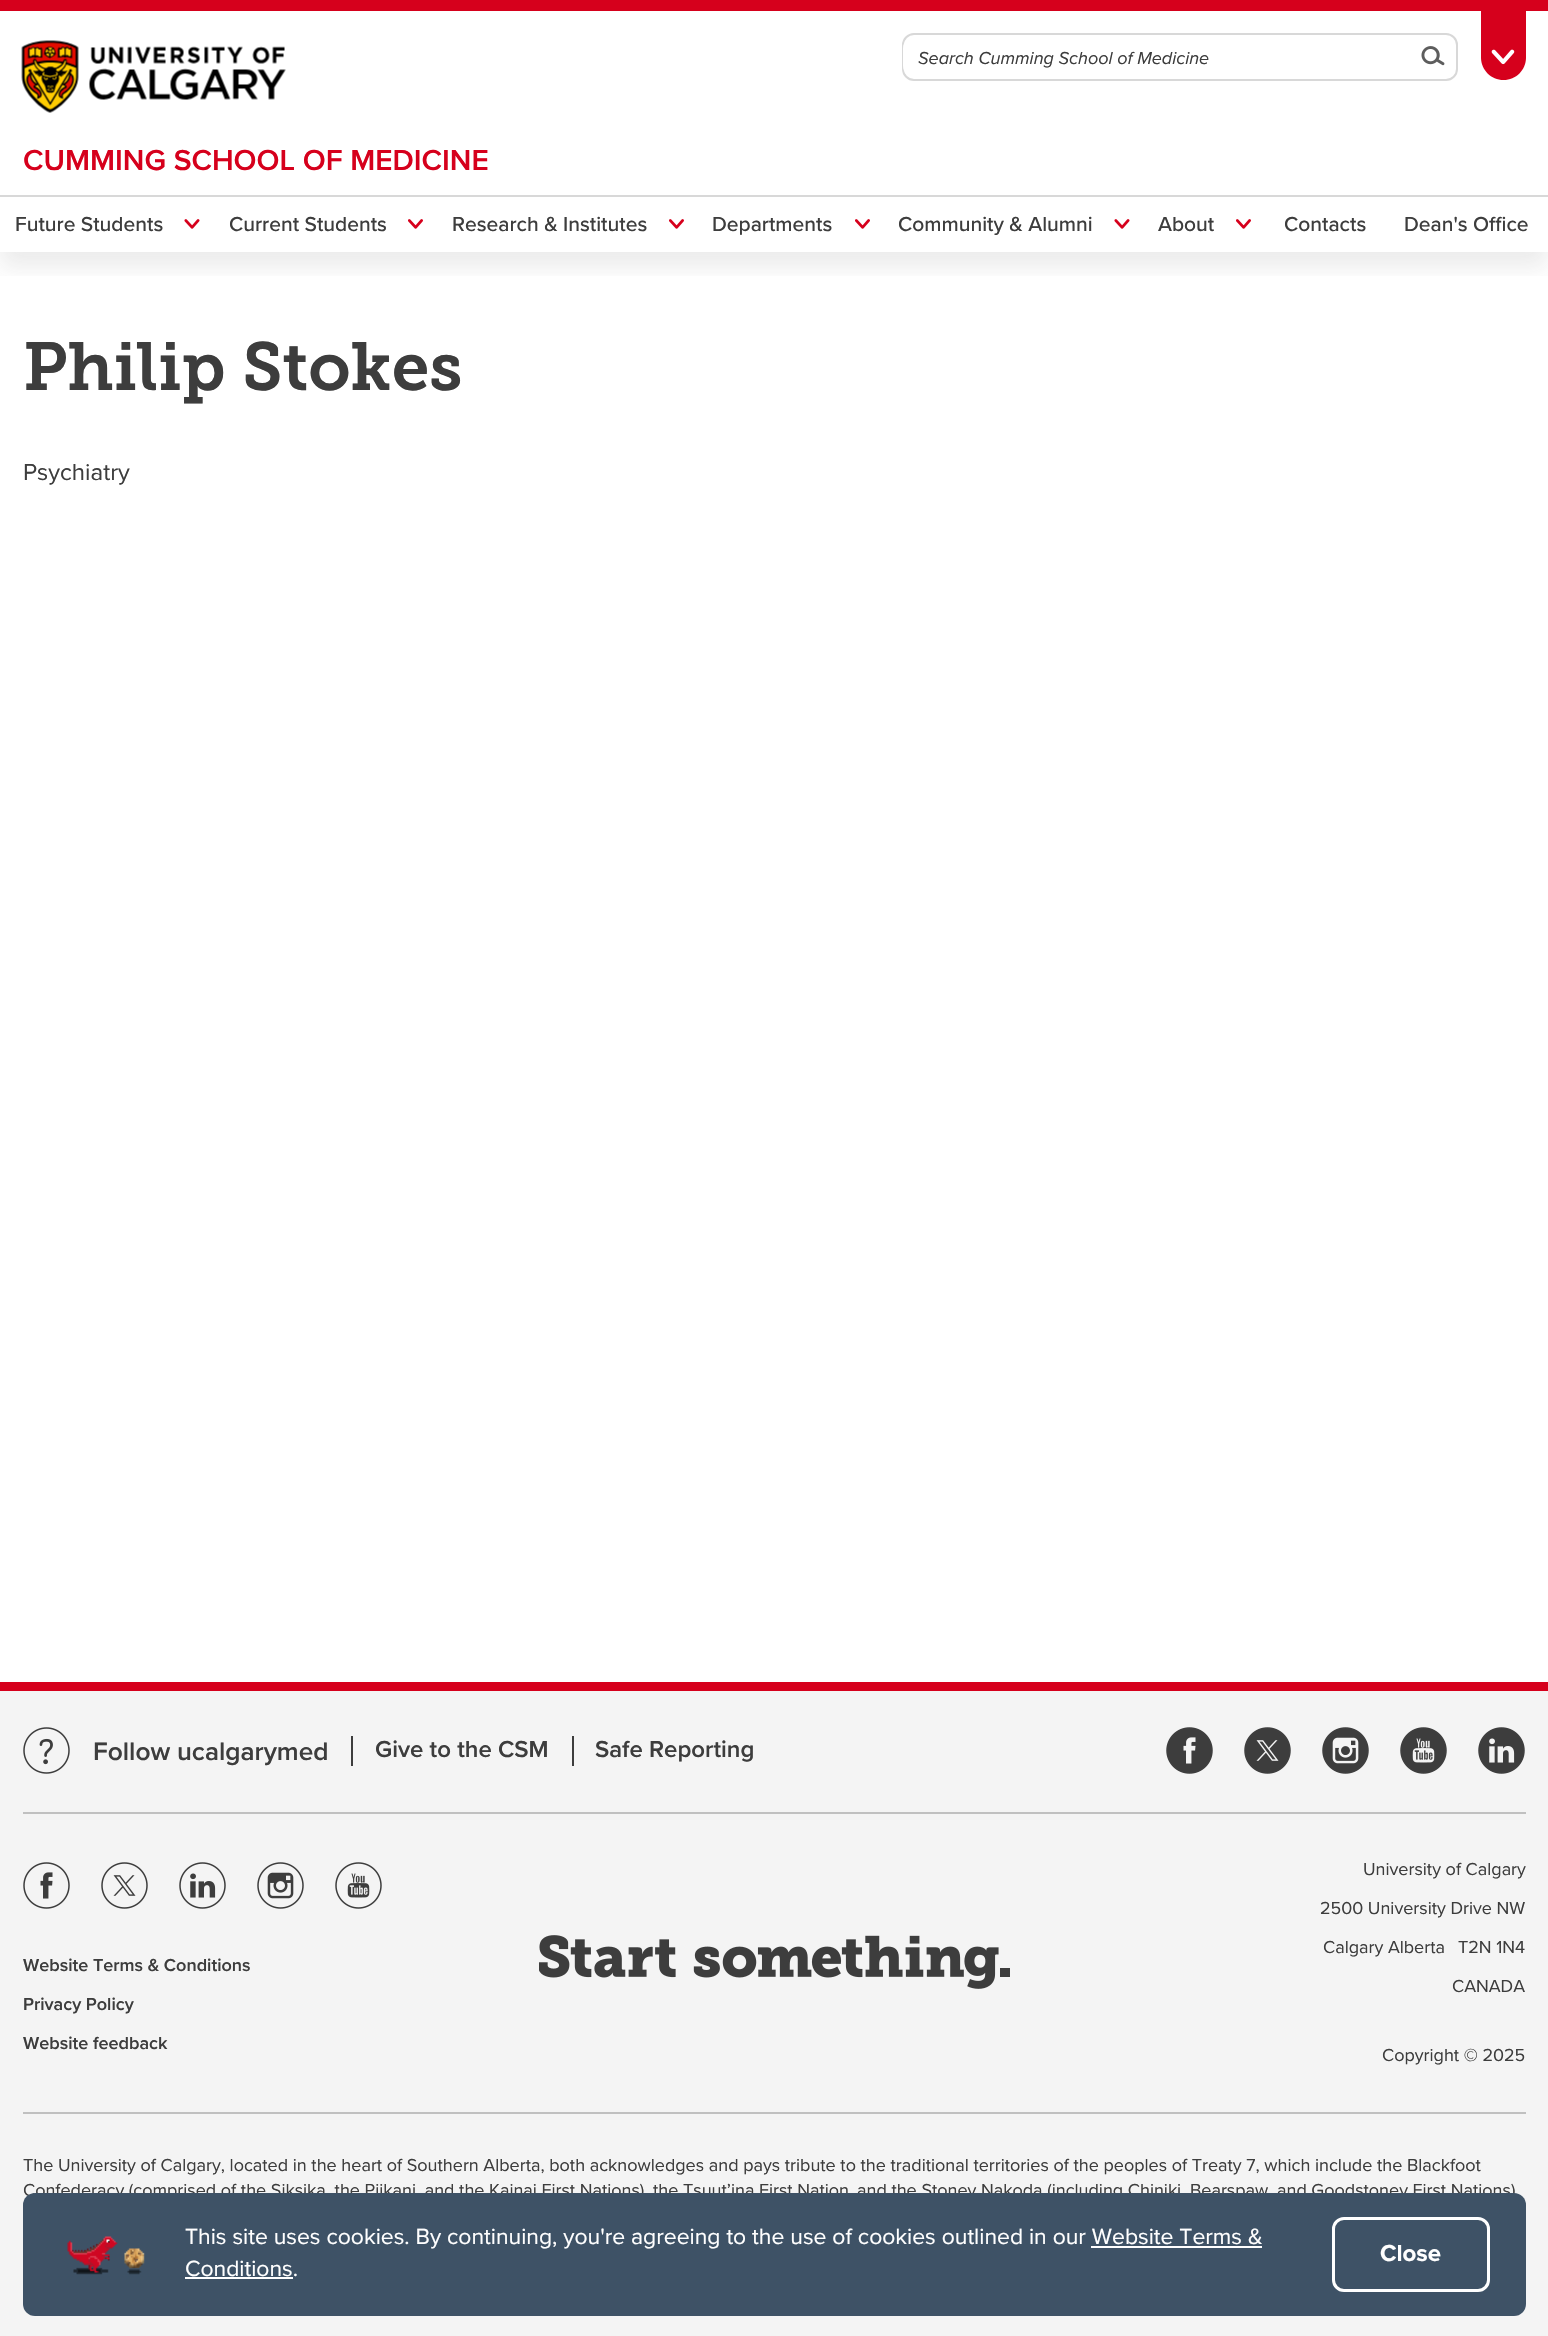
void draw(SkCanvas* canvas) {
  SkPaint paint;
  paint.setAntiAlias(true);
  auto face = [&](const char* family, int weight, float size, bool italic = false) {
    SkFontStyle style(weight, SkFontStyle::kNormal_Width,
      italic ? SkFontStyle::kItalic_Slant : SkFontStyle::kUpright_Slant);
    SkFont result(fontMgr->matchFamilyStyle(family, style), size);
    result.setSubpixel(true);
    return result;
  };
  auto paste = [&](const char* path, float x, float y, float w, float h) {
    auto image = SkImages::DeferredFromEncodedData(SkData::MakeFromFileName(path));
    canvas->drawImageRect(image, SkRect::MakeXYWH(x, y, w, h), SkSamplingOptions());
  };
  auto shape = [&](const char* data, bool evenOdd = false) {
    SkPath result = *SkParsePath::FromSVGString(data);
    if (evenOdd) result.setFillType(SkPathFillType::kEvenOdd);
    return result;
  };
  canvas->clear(0xffffffff);
  paint.setColor(0xffd6001c);
  canvas->drawRect(SkRect::MakeXYWH(0, 0, 1548, 11), paint);
  canvas->save();
  canvas->clipRect(SkRect::MakeXYWH(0, 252, 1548, 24));
  paint.setColor(0x1a3d3d3d);
  paint.setMaskFilter(SkMaskFilter::MakeBlur(kNormal_SkBlurStyle, 11));
  canvas->drawRect(SkRect::MakeXYWH(0, 26, 1548, 241), paint);
  paint.setMaskFilter(nullptr);
  canvas->restore();
  paint.setStroke(true);
  paint.setStrokeWidth(2);
  paint.setColor(0xffd8d8d8);
  canvas->drawRoundRect(SkRect::MakeXYWH(903, 34, 554, 46), 11, 11, paint);
  paint.setStroke(false);
  paint.setColor(0xffffffff);
  canvas->drawPath(shape("M915 36H1413V78H915C908.5 78 903 72.5 903 66V48C903 41.5 908.5 36 915 36Z"), paint);
  paste("img/1.png", 1421, 46, 24, 20);
  paint.setColor(0xffd6001c);
  canvas->drawPath(shape("M1481 0H1526V57.5C1526 70 1516 80 1503.5 80C1491 80 1481 70 1481 57.5Z"), paint);
  paste("img/2.png", 1491, 49, 24, 16);
  paste("img/3.png", 21, 40, 265, 73);
  paint.setColor(0xffd8d8d8);
  canvas->drawRect(SkRect::MakeXYWH(0, 195, 1548, 2), paint);
  paste("img/4.png", 184, 219, 16, 10);
  paste("img/5.png", 408, 219, 15, 10);
  paste("img/5.png", 669, 219, 15, 10);
  paste("img/5.png", 855, 219, 15, 10);
  paste("img/4.png", 1114, 219, 16, 10);
  paste("img/5.png", 1236, 219, 15, 10);
  paint.setColor(0xfff4f4f4);
  canvas->drawRect(SkRect::MakeXYWH(0, 1691, 1548, 645), paint);
  paint.setColor(0xffd6001c);
  canvas->drawRect(SkRect::MakeXYWH(0, 1682, 1548, 9), paint);
  paste("img/6.png", 23, 1727, 47, 47);
  paint.setColor(0xff3d3d3d);
  canvas->drawRect(SkRect::MakeXYWH(351, 1736, 2, 30), paint);
  canvas->drawRect(SkRect::MakeXYWH(572, 1736, 2, 30), paint);
  paste("img/7.png", 1166, 1727, 47, 47);
  paste("img/8.png", 1244, 1727, 47, 47);
  paste("img/9.png", 1322, 1727, 47, 47);
  paste("img/10.png", 1400, 1727, 47, 47);
  paste("img/11.png", 1478, 1727, 47, 47);
  paint.setColor(0xffc0c0c0);
  canvas->drawRect(SkRect::MakeXYWH(23, 1812, 1503, 2), paint);
  paste("img/12.png", 23, 1862, 47, 47);
  paste("img/13.png", 101, 1862, 47, 47);
  paste("img/14.png", 179, 1862, 47, 47);
  paste("img/15.png", 257, 1862, 47, 47);
  paste("img/16.png", 335, 1862, 47, 47);
  paste("img/17.png", 539, 1935, 471, 54);
  canvas->drawRect(SkRect::MakeXYWH(23, 2112, 1503, 2), paint);
  auto f0 = face("Proxima Nova", 400, 18, true);
  paint.setColor(0xff3d3d3d);
  canvas->drawString("Search Cumming School of Medicine", 918, 64, f0, paint);
  auto f1 = face("Proxima Nova", 600, 30);
  paint.setColor(0xffd6001c);
  canvas->drawString("CUMMING SCHOOL OF MEDICINE", 23, 170, f1, paint);
  auto f2 = face("Proxima Nova", 500, 21);
  paint.setColor(0xff3d3d3d);
  {
    const struct { const char* s; float x, y; } items[] = {
      {"Future Students", 15, 231},
      {"Current Students", 229, 231},
      {"Research & Institutes", 452, 231},
      {"Departments", 712, 231},
      {"Community & Alumni", 898, 231},
      {"About", 1158, 231},
      {"Contacts", 1284, 231},
      {"Dean's Office", 1404, 231},
    };
    for (auto [s, x, y] : items) {
      canvas->drawString(s, x, y, f2, paint);
    }
  }
  auto f3 = face("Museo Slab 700", 600, 67.5f);
  canvas->drawString("Philip Stokes", 23, 390, f3, paint);
  auto f4 = face("Proxima Nova", 400, 24);
  canvas->drawString("Psychiatry", 23, 480, f4, paint);
  auto f5 = face("Proxima Nova", 600, 26.25f);
  canvas->drawString("Follow ucalgarymed", 93, 1760, f5, paint);
  auto f6 = face("Proxima Nova", 600, 24);
  canvas->drawString("Give to the CSM", 375, 1757, f6, paint);
  canvas->drawString("Safe Reporting", 595, 1757, f6, paint);
  auto f7 = face("Proxima Nova", 600, 18);
  {
    const struct { const char* s; float x, y; } items[] = {
      {"Website Terms & Conditions", 23, 1971},
      {"Privacy Policy", 23, 2010},
      {"Website feedback", 23, 2049},
    };
    for (auto [s, x, y] : items) {
      canvas->drawString(s, x, y, f7, paint);
    }
  }
  auto f8 = face("Proxima Nova", 400, 18);
  {
    const struct { const char* s; float x, y; } items[] = {
      {"University of Calgary", 1363, 1875},
      {"2500 University Drive NW", 1320, 1914},
      {"Calgary Alberta", 1323, 1953},
      {"T2N 1N4", 1458, 1953},
      {"CANADA", 1452, 1992},
      {"Copyright © 2025", 1382, 2061},
      {"The University of Calgary, located in the heart of Southern Alberta, both acknowledges and pays tribute to the traditional territories of the peoples of Treaty 7, which include the Blackfoot", 23, 2171},
      {"Confederacy (comprised of the Siksika, the Piikani, and the Kainai First Nations), the Tsuut’ina First Nation", 23, 2196},
      {"and the Stoney Nakoda (including Chiniki, Bearspaw, and Goodstoney First Nations)", 857, 2196},
    };
    for (auto [s, x, y] : items) {
      canvas->drawString(s, x, y, f8, paint);
    }
  }
  paint.setColor(0xff3e5266);
  canvas->drawRoundRect(SkRect::MakeXYWH(23, 2193, 1503, 123), 12, 12, paint);
  paste("img/18.png", 67, 2236, 78, 39);
  auto f9 = face("Proxima Nova", 400, 22.9f);
  paint.setColor(0xffffffff);
  canvas->drawString("This site uses cookies. By continuing, you're agreeing to the use of cookies outlined in our Website Terms &", 185, 2244, f9, paint);
  canvas->drawString("Conditions.", 185, 2276, f9, paint);
  canvas->drawRect(SkRect::MakeXYWH(1091, 2246, 171, 2), paint);
  canvas->drawRect(SkRect::MakeXYWH(185, 2277, 108, 2), paint);
  paint.setStroke(true);
  paint.setStrokeWidth(3);
  canvas->drawRoundRect(SkRect::MakeXYWH(1333.5f, 2218.5f, 155, 72), 10.5f, 10.5f, paint);
  auto f10 = face("Proxima Nova", 700, 24);
  paint.setStroke(false);
  canvas->drawString("Close", 1380, 2261, f10, paint);
}
